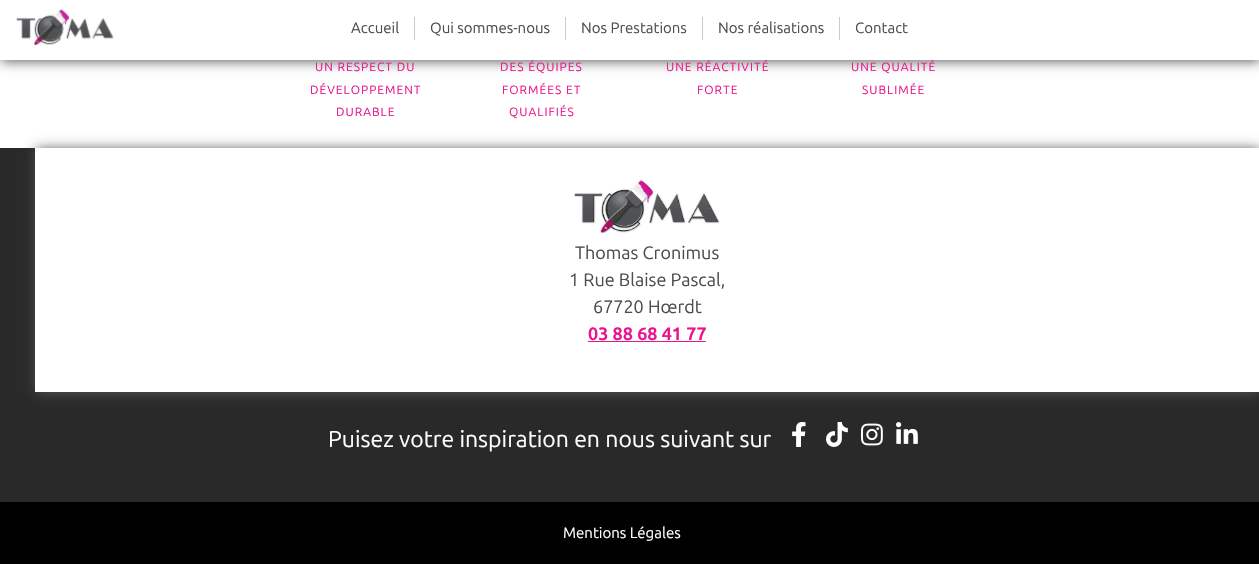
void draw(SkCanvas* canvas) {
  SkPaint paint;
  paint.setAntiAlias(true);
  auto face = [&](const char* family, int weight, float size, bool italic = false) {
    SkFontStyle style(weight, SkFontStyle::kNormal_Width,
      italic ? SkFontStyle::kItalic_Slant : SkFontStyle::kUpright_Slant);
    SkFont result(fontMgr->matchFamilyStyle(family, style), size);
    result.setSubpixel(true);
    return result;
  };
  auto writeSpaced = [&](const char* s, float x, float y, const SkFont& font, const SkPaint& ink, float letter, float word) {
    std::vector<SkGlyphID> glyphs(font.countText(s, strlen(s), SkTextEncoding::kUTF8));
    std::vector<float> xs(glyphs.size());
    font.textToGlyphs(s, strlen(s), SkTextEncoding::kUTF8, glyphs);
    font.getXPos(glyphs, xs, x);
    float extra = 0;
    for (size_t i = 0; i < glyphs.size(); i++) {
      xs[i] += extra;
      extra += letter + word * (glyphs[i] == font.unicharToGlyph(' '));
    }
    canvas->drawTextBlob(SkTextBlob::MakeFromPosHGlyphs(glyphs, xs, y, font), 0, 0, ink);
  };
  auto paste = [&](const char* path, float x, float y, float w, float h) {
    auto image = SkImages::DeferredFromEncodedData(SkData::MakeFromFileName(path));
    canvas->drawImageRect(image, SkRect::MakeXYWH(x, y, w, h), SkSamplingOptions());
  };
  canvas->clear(0xffffffff);
  paint.setColor(0xff555555);
  paint.setMaskFilter(SkMaskFilter::MakeBlur(kNormal_SkBlurStyle, 6));
  canvas->drawRect(SkRect::MakeXYWH(1, 1, 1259, 60), paint);
  paint.setMaskFilter(nullptr);
  paint.setColor(0xff292929);
  canvas->drawRect(SkRect::MakeXYWH(0, 148, 1259, 354), paint);
  paint.setColor(0xff555555);
  paint.setMaskFilter(SkMaskFilter::MakeBlur(kNormal_SkBlurStyle, 6));
  canvas->drawRect(SkRect::MakeXYWH(36, 149, 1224, 244), paint);
  paint.setMaskFilter(nullptr);
  paint.setColor(0xffffffff);
  canvas->drawRect(SkRect::MakeXYWH(35, 148, 1224, 244), paint);
  paste("img/2.png", 574, 180, 146, 53);
  paint.setColor(0xffea148c);
  canvas->drawRect(SkRect::MakeXYWH(588, 341, 118, 1), paint);
  paste("img/3.png", 792, 422, 14, 25);
  paste("img/4.png", 826, 422, 22, 25);
  paste("img/5.png", 861, 423, 22, 23);
  paste("img/6.png", 896, 422, 22, 22);
  paint.setColor(0xff000000);
  canvas->drawRect(SkRect::MakeXYWH(0, 502, 1259, 62), paint);
  auto f0 = face("Ubuntu", 400, 12);
  paint.setColor(0xffea148c);
  {
    const struct { const char* s; float x, y; } items[] = {
      {"UN RESPECT DU", 315, 71},
      {"DÉVELOPPEMENT", 310, 94},
      {"DURABLE", 336, 116},
      {"DES ÉQUIPES", 500, 71},
      {"FORMÉES ET", 502, 94},
      {"QUALIFIÉS", 509, 116},
      {"UNE RÉACTIVITÉ", 666, 71},
      {"FORTE", 697, 94},
      {"UNE QUALITÉ", 851, 71},
    };
    for (auto [s, x, y] : items) {
      writeSpaced(s, x, y, f0, paint, 1, 0);
    }
  }
  paint.setColor(0xffffffff);
  canvas->drawRect(SkRect::MakeXYWH(0, 0, 1259, 60), paint);
  auto f1 = face("Ubuntu", 400, 15);
  paint.setColor(0xff4d4d4f);
  canvas->drawString("Contact", 855, 33, f1, paint);
  canvas->drawString("Nos réalisations", 718, 33, f1, paint);
  paint.setColor(0xffcbcbcb);
  canvas->drawRect(SkRect::MakeXYWH(839, 17, 1, 23), paint);
  paint.setColor(0xff4d4d4f);
  canvas->drawString("Nos Prestations", 581, 33, f1, paint);
  paint.setColor(0xffcbcbcb);
  canvas->drawRect(SkRect::MakeXYWH(702, 17, 1, 23), paint);
  paint.setColor(0xff4d4d4f);
  canvas->drawString("Qui sommes-nous", 430, 33, f1, paint);
  paint.setColor(0xffcbcbcb);
  canvas->drawRect(SkRect::MakeXYWH(565, 17, 1, 23), paint);
  paint.setColor(0xff4d4d4f);
  canvas->drawString("Accueil", 351, 33, f1, paint);
  paint.setColor(0xffcbcbcb);
  canvas->drawRect(SkRect::MakeXYWH(414, 17, 1, 23), paint);
  paste("img/1.png", 16, 9, 98, 36);
  paint.setColor(0xffea148c);
  writeSpaced("SUBLIMÉE", 862, 94, f0, paint, 1, 0);
  auto f2 = face("Ubuntu", 400, 18);
  paint.setColor(0xff4d4d4f);
  {
    const struct { const char* s; float x, y; } items[] = {
      {"Thomas Cronimus", 575, 259},
      {"1 Rue Blaise Pascal,", 569, 286},
      {"67720 Hœrdt", 593, 313},
    };
    for (auto [s, x, y] : items) {
      canvas->drawString(s, x, y, f2, paint);
    }
  }
  auto f3 = face("Ubuntu", 700, 18);
  paint.setColor(0xffea148c);
  canvas->drawString("03 88 68 41 77", 588, 340, f3, paint);
  auto f4 = face("Ubuntu", 400, 23);
  paint.setColor(0xffffffff);
  canvas->drawString("Puisez votre inspiration en nous suivant sur", 328, 447, f4, paint);
  canvas->drawString("Mentions Légales", 563, 538, f1, paint);
}
